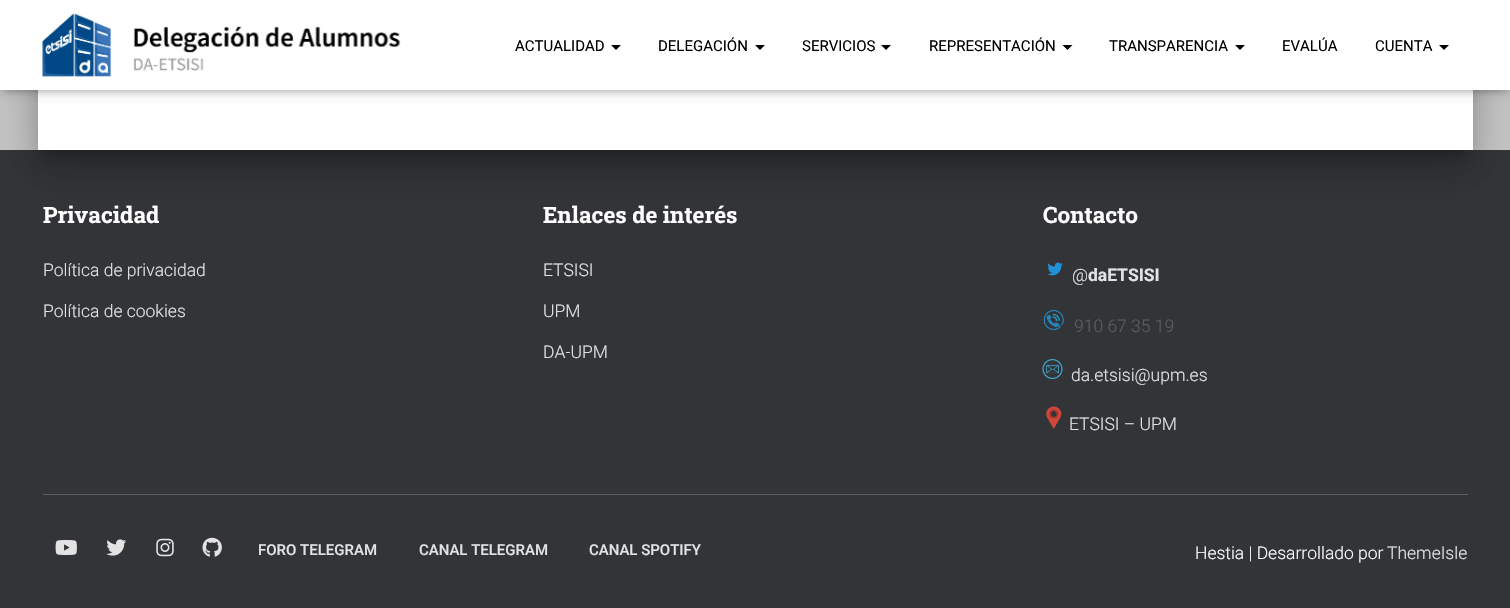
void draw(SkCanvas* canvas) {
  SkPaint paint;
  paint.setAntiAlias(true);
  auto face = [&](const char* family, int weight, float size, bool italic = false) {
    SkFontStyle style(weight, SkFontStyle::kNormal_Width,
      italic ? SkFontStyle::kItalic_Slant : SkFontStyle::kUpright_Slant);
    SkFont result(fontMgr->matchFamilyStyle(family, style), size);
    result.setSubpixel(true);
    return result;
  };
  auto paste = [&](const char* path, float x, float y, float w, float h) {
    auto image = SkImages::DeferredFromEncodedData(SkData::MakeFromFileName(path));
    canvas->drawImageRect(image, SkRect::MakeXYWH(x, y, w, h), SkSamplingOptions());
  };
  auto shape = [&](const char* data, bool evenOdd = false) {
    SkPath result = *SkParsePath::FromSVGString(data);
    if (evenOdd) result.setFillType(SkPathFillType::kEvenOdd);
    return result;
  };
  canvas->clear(0xffc4c4c4);
  paint.setColor(0xff323437);
  canvas->drawRect(SkRect::MakeXYWH(0, 150, 1510, 458), paint);
  paint.setColor(0x33000000);
  paint.setMaskFilter(SkMaskFilter::MakeBlur(kNormal_SkBlurStyle, 6));
  canvas->drawRoundRect(SkRect::MakeXYWH(44, -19, 1422, 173), 1, 1, paint);
  paint.setMaskFilter(nullptr);
  paint.setColor(0x1f000000);
  paint.setMaskFilter(SkMaskFilter::MakeBlur(kNormal_SkBlurStyle, 19));
  canvas->drawRoundRect(SkRect::MakeXYWH(31, -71, 1448, 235), 14, 14, paint);
  paint.setMaskFilter(nullptr);
  paint.setColor(0x24000000);
  paint.setMaskFilter(SkMaskFilter::MakeBlur(kNormal_SkBlurStyle, 15));
  canvas->drawRoundRect(SkRect::MakeXYWH(35, -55, 1440, 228), 10, 10, paint);
  paint.setMaskFilter(nullptr);
  paint.setColor(0xffffffff);
  canvas->drawRect(SkRect::MakeXYWH(38, 90, 1435, 60), paint);
  paint.setColor(0x1a000000);
  paint.setMaskFilter(SkMaskFilter::MakeBlur(kNormal_SkBlurStyle, 3));
  canvas->drawRect(SkRect::MakeXYWH(3, 8, 1505, 85), paint);
  paint.setMaskFilter(nullptr);
  paint.setColor(0x1f000000);
  paint.setMaskFilter(SkMaskFilter::MakeBlur(kNormal_SkBlurStyle, 6));
  canvas->drawRect(SkRect::MakeXYWH(0, 1, 1510, 90), paint);
  paint.setMaskFilter(nullptr);
  paint.setColor(0x6b000000);
  paint.setMaskFilter(SkMaskFilter::MakeBlur(kNormal_SkBlurStyle, 6));
  canvas->drawRect(SkRect::MakeXYWH(8, 9, 1495, 75), paint);
  paint.setMaskFilter(nullptr);
  paint.setColor(0xffffffff);
  canvas->drawRect(SkRect::MakeXYWH(0, 0, 1510, 90), paint);
  paste("img/1.png", 42, 13, 359, 64);
  paint.setColor(0xff000000);
  canvas->drawPath(shape("M611 45H621L616 50Z"), paint);
  canvas->drawPath(shape("M755 45H765L760 50Z"), paint);
  canvas->drawPath(shape("M881 45H891L886 50Z"), paint);
  canvas->drawPath(shape("M1062.5 45H1072.5L1067.5 50Z"), paint);
  canvas->drawPath(shape("M1235 45H1245L1240 50Z"), paint);
  canvas->drawPath(shape("M1439 45H1449L1444 50Z"), paint);
  paste("img/2.png", 1047, 262, 16, 14);
  paste("img/3.png", 1043, 309, 21, 22);
  paste("img/4.png", 1042, 359, 21, 20);
  paste("img/5.png", 1046, 406, 16, 23);
  paint.setColor(0xff5e5e5e);
  canvas->drawRect(SkRect::MakeXYWH(43, 494, 1425, 1), paint);
  paste("img/6.png", 55, 540, 22, 15);
  paste("img/7.png", 106, 539, 21, 17);
  paste("img/8.png", 156, 538, 18, 19);
  paste("img/9.png", 202, 537, 20, 20);
  auto f0 = face("Roboto", 400, 15);
  paint.setColor(0xff000000);
  {
    const struct { const char* s; float x, y; } items[] = {
      {"ACTUALIDAD", 515, 51},
      {"DELEGACIÓN", 658, 51},
      {"SERVICIOS", 802, 51},
      {"REPRESENTACIÓN", 929, 51},
      {"TRANSPARENCIA", 1109, 51},
      {"EVALÚA", 1282, 51},
      {"CUENTA", 1375, 51},
    };
    for (auto [s, x, y] : items) {
      canvas->drawString(s, x, y, f0, paint);
    }
  }
  auto f1 = face("Roboto Slab", 700, 22.5f);
  paint.setColor(0xffffffff);
  canvas->drawString("Privacidad", 43, 223, f1, paint);
  auto f2 = face("Roboto", 300, 17.5f);
  paint.setColor(0xffe2e3e3);
  canvas->drawString("Política de privacidad", 43, 276, f2, paint);
  canvas->drawString("Política de cookies", 43, 317, f2, paint);
  paint.setColor(0xffffffff);
  canvas->drawString("Enlaces de interés", 543, 223, f1, paint);
  paint.setColor(0xffe2e3e3);
  {
    const struct { const char* s; float x, y; } items[] = {
      {"ETSISI", 543, 276},
      {"UPM", 543, 317},
      {"DA-UPM", 543, 358},
    };
    for (auto [s, x, y] : items) {
      canvas->drawString(s, x, y, f2, paint);
    }
  }
  paint.setColor(0xffffffff);
  canvas->drawString("Contacto", 1043, 223, f1, paint);
  paint.setColor(0xffe2e3e3);
  canvas->drawString("@", 1072, 281, f2, paint);
  auto f3 = face("Roboto", 700, 17.5f);
  canvas->drawString("daETSISI", 1088, 281, f3, paint);
  paint.setColor(0xff5e5e5e);
  canvas->drawString("910 67 35 19", 1074, 332, f2, paint);
  paint.setColor(0xffe2e3e3);
  canvas->drawString("da.etsisi@upm.es", 1071, 381, f2, paint);
  canvas->drawString("ETSISI – UPM", 1069, 430, f2, paint);
  auto f4 = face("Roboto", 500, 15);
  {
    const struct { const char* s; float x, y; } items[] = {
      {"FORO TELEGRAM", 258, 555},
      {"CANAL TELEGRAM", 419, 555},
      {"CANAL SPOTIFY", 589, 555},
    };
    for (auto [s, x, y] : items) {
      canvas->drawString(s, x, y, f4, paint);
    }
  }
  paint.setColor(0xffffffff);
  canvas->drawString("Hestia | Desarrollado por", 1195, 559, f2, paint);
  paint.setColor(0xffe2e3e3);
  canvas->drawString("ThemeIsle", 1387, 559, f2, paint);
}
